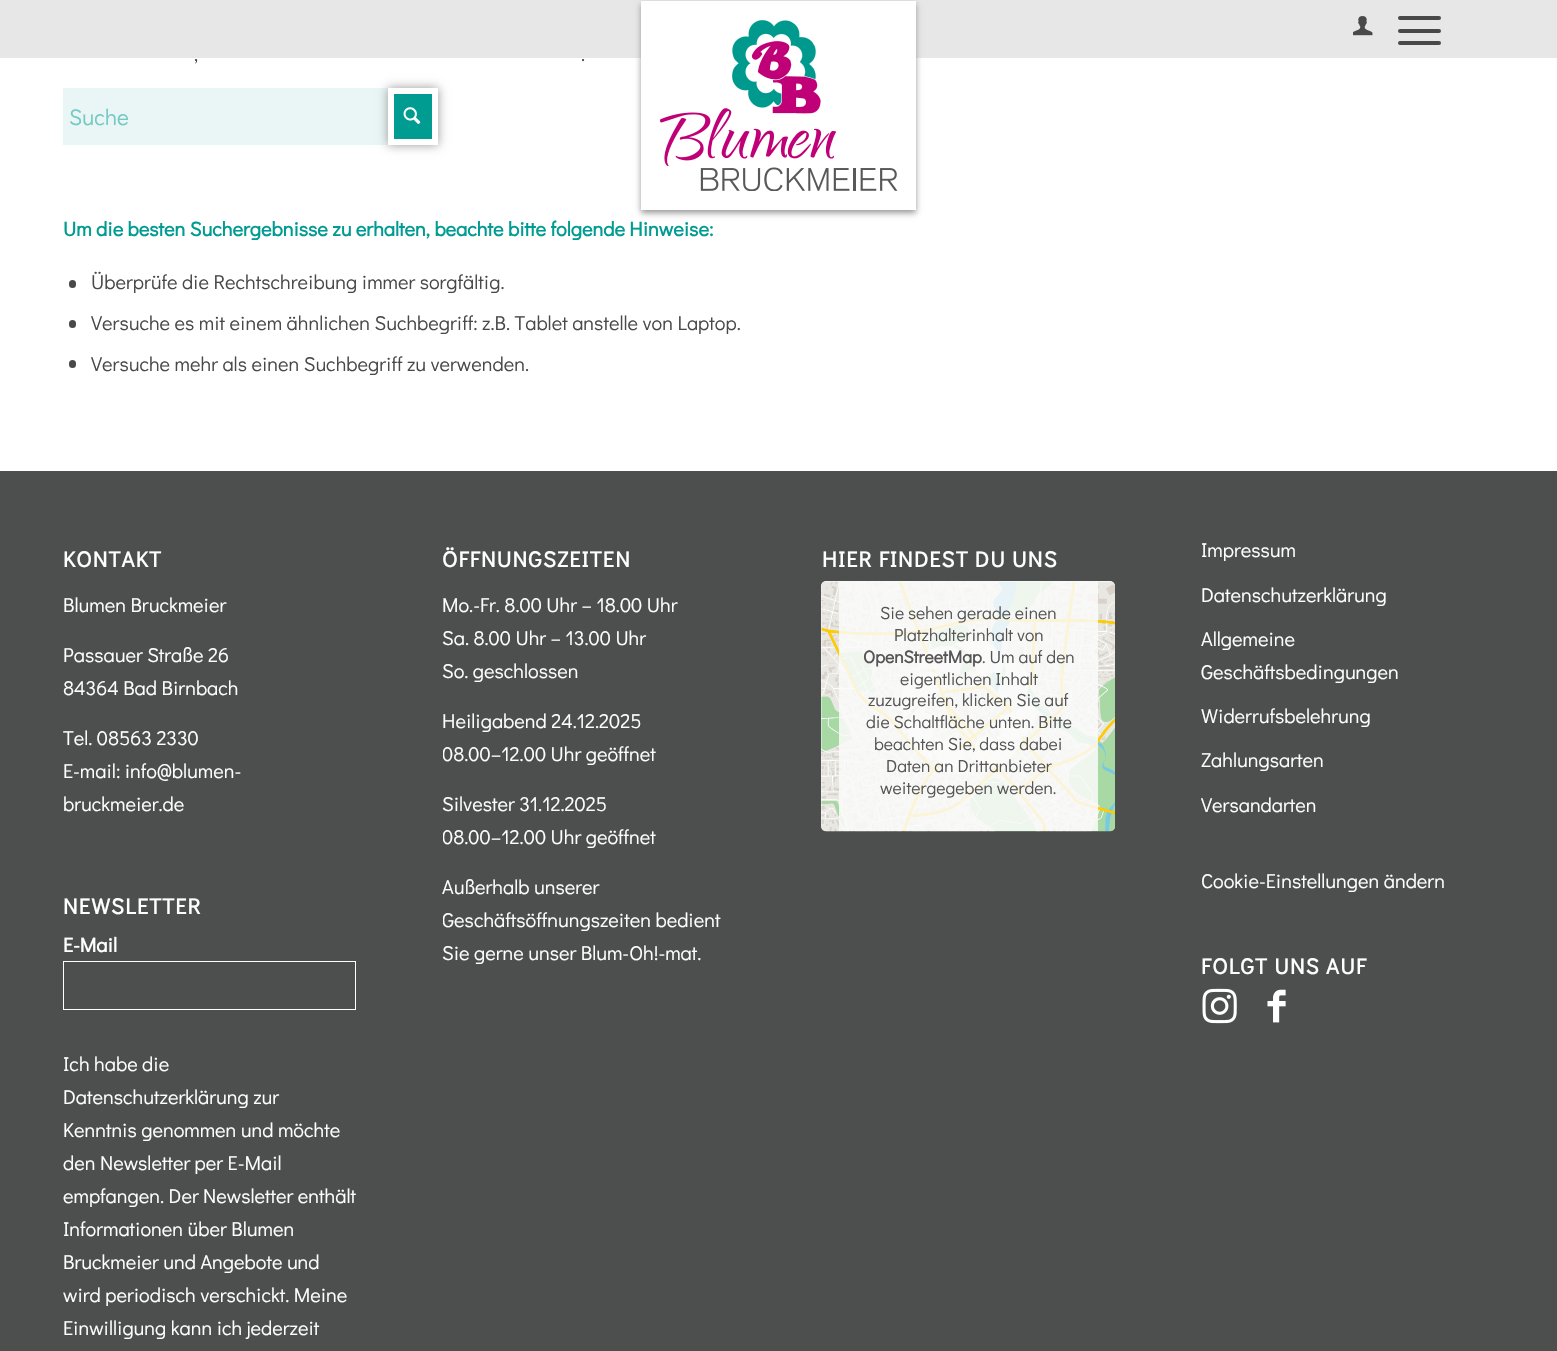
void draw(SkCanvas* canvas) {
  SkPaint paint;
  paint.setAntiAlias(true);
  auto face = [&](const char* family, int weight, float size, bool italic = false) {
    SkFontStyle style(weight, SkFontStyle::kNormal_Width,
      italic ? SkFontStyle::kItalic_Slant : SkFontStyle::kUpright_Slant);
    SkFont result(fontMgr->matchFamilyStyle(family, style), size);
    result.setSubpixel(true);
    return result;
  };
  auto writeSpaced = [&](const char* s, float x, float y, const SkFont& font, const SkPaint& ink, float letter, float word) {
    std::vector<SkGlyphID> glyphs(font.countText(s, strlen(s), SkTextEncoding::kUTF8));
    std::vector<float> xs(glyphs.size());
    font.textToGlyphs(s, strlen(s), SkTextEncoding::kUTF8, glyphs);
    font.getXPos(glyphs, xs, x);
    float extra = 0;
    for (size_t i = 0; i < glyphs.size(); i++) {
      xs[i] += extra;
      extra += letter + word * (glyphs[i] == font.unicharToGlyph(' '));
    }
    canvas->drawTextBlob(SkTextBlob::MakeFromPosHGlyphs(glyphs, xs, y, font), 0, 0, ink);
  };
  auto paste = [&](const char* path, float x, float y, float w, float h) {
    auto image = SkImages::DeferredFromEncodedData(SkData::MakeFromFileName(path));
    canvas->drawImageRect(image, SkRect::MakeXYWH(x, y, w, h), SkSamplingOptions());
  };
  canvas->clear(0xffffffff);
  paint.setColor(0xf2e6e6e6);
  canvas->drawRect(SkRect::MakeXYWH(0, 0, 1557, 58), paint);
  paint.setColor(0xff999999);
  paint.setMaskFilter(SkMaskFilter::MakeBlur(kNormal_SkBlurStyle, 3));
  canvas->drawRect(SkRect::MakeXYWH(641, 4, 275, 209), paint);
  paint.setMaskFilter(nullptr);
  paint.setColor(0xffffffff);
  canvas->drawRect(SkRect::MakeXYWH(641, 1, 275, 209), paint);
  paste("img/1.png", 660, 20, 238, 171);
  paste("img/2.png", 1353, 16, 20, 20);
  paint.setColor(0xff494949);
  canvas->drawRoundRect(SkRect::MakeXYWH(1398, 29, 43, 4), 2, 2, paint);
  canvas->drawRoundRect(SkRect::MakeXYWH(1398, 16, 43, 4), 2, 2, paint);
  canvas->drawRoundRect(SkRect::MakeXYWH(1398, 41, 43, 4), 2, 2, paint);
  paint.setColor(0xffe9f6f5);
  canvas->drawRect(SkRect::MakeXYWH(63, 88, 325, 57), paint);
  paint.setColor(0xff999999);
  paint.setMaskFilter(SkMaskFilter::MakeBlur(kNormal_SkBlurStyle, 5));
  canvas->drawRect(SkRect::MakeXYWH(388, 88, 50, 57), paint);
  paint.setMaskFilter(nullptr);
  paint.setColor(0xff009c92);
  canvas->drawRect(SkRect::MakeXYWH(391, 91, 44, 51), paint);
  paint.setStroke(true);
  paint.setStrokeWidth(6);
  paint.setColor(0xffffffff);
  canvas->drawRect(SkRect::MakeXYWH(391, 91, 44, 51), paint);
  paste("img/3.png", 403, 107, 18, 17);
  paint.setStroke(false);
  paint.setColor(0xff494949);
  canvas->drawRoundRect(SkRect::MakeXYWH(69, 280, 7, 8), 3.5f, 3.5f, paint);
  canvas->drawRoundRect(SkRect::MakeXYWH(69, 320, 7, 8), 3.5f, 3.5f, paint);
  canvas->drawRoundRect(SkRect::MakeXYWH(69, 360, 7, 8), 3.5f, 3.5f, paint);
  paint.setColor(0xff4d4f4e);
  canvas->drawRect(SkRect::MakeXYWH(0, 471, 1557, 880), paint);
  paint.setStroke(true);
  paint.setStrokeWidth(1);
  paint.setColor(0xffffffff);
  canvas->drawRect(SkRect::MakeXYWH(63.5f, 961.5f, 292, 48), paint);
  paint.setStroke(false);
  paint.setColor(0xfffafafa);
  canvas->drawRoundRect(SkRect::MakeXYWH(821, 581, 294, 250), 5, 5, paint);
  paste("img/4.png", 821, 581, 294, 251);
  paint.setColor(0xd9fafafa);
  canvas->drawRect(SkRect::MakeXYWH(839, 581, 259, 250), paint);
  paste("img/5.png", 1202, 988, 35, 36);
  paste("img/6.png", 1267, 989, 19, 34);
  auto f0 = face("Didact Gothic", 400, 20);
  paint.setColor(0xff494949);
  canvas->drawString(",", 194, 61, f0, paint);
  canvas->drawString(".", 581, 61, f0, paint);
  auto f1 = face("Didact Gothic", 400, 22.5f);
  paint.setColor(0xff75c9c4);
  canvas->drawString("Suche", 69, 125, f1, paint);
  auto f2 = face("Didact Gothic", 700, 20);
  paint.setColor(0xff009c92);
  canvas->drawString("Um die besten Suchergebnisse zu erhalten, beachte bitte folgende Hinweise:", 63, 236, f2, paint);
  paint.setColor(0xff494949);
  {
    const struct { const char* s; float x, y; } items[] = {
      {"Überprüfe die Rechtschreibung immer sorgfältig.", 91, 289},
      {"Versuche es mit einem ähnlichen Suchbegriff: z.B. Tablet anstelle von Laptop.", 91, 330},
      {"Versuche mehr als einen Suchbegriff zu verwenden.", 91, 371},
    };
    for (auto [s, x, y] : items) {
      canvas->drawString(s, x, y, f0, paint);
    }
  }
  auto f3 = face("Didact Gothic", 700, 22);
  paint.setColor(0xffffffff);
  writeSpaced("KONTAKT", 63, 567, f3, paint, 1.25f, 0);
  {
    const struct { const char* s; float x, y; } items[] = {
      {"Blumen Bruckmeier", 63, 612},
      {"Passauer Straße 26", 63, 662},
      {"84364 Bad Birnbach", 63, 695},
      {"Tel. 08563 2330", 63, 745},
      {"E-mail: info@blumen-", 63, 778},
      {"bruckmeier.de", 63, 811},
    };
    for (auto [s, x, y] : items) {
      canvas->drawString(s, x, y, f0, paint);
    }
  }
  writeSpaced("NEWSLETTER", 63, 914, f3, paint, 1.25f, 0);
  canvas->drawString("E-Mail", 63, 952, f2, paint);
  {
    const struct { const char* s; float x, y; } items[] = {
      {"Ich habe die", 63, 1071},
      {"Datenschutzerklärung zur", 63, 1104},
      {"Kenntnis genommen und möchte", 63, 1137},
      {"den Newsletter per E-Mail", 63, 1170},
      {"empfangen. Der Newsletter enthält", 63, 1203},
      {"Informationen über Blumen", 63, 1236},
      {"Bruckmeier und Angebote und", 63, 1269},
      {"wird periodisch verschickt. Meine", 63, 1302},
      {"Einwilligung kann ich jederzeit", 63, 1335},
    };
    for (auto [s, x, y] : items) {
      canvas->drawString(s, x, y, f0, paint);
    }
  }
  writeSpaced("ÖFFNUNGSZEITEN", 442, 567, f3, paint, 1.25f, 0);
  {
    const struct { const char* s; float x, y; } items[] = {
      {"Mo.-Fr. 8.00 Uhr – 18.00 Uhr", 442, 612},
      {"Sa. 8.00 Uhr – 13.00 Uhr", 442, 645},
      {"So. geschlossen", 442, 678},
      {"Heiligabend 24.12.2025", 442, 728},
    };
    for (auto [s, x, y] : items) {
      canvas->drawString(s, x, y, f0, paint);
    }
  }
  canvas->save();
  canvas->clipRect(SkRect::MakeXYWH(443, 529, 293, 457));
  canvas->drawString("08.00–12.00 Uhr geöffnet", 442, 761, f0, paint);
  canvas->restore();
  canvas->drawString("Silvester 31.12.2025", 442, 811, f0, paint);
  canvas->save();
  canvas->clipRect(SkRect::MakeXYWH(443, 529, 293, 457));
  canvas->drawString("08.00–12.00 Uhr geöffnet", 442, 844, f0, paint);
  canvas->restore();
  canvas->drawString("Außerhalb unserer", 442, 894, f0, paint);
  canvas->save();
  canvas->clipRect(SkRect::MakeXYWH(443, 529, 293, 457));
  canvas->drawString("Geschäftsöffnungszeiten bedient", 442, 927, f0, paint);
  canvas->restore();
  canvas->drawString("Sie gerne unser Blum-Oh!-mat.", 442, 960, f0, paint);
  writeSpaced("HIER FINDEST DU UNS", 822, 567, f3, paint, 1.25f, 0);
  auto f4 = face("Didact Gothic", 400, 17.5f);
  paint.setColor(0xff555555);
  canvas->drawString("Sie sehen gerade einen", 880, 619, f4, paint);
  canvas->drawString("Platzhalterinhalt von", 894, 641, f4, paint);
  auto f5 = face("Didact Gothic", 700, 17.5f);
  canvas->drawString("OpenStreetMap", 863, 663, f5, paint);
  {
    const struct { const char* s; float x, y; } items[] = {
      {". Um auf den", 982, 663},
      {"eigentlichen Inhalt", 900, 685},
      {"zuzugreifen, klicken Sie auf", 868, 706},
      {"die Schaltfläche unten. Bitte", 866, 728},
      {"beachten Sie, dass dabei", 874, 750},
      {"Daten an Drittanbieter", 886, 772},
      {"weitergegeben werden.", 880, 794},
    };
    for (auto [s, x, y] : items) {
      canvas->drawString(s, x, y, f4, paint);
    }
  }
  paint.setColor(0xffffffff);
  {
    const struct { const char* s; float x, y; } items[] = {
      {"Impressum", 1201, 557},
      {"Datenschutzerklärung", 1201, 602},
      {"Allgemeine", 1201, 646},
      {"Geschäftsbedingungen", 1201, 679},
      {"Widerrufsbelehrung", 1201, 723},
      {"Zahlungsarten", 1201, 767},
      {"Versandarten", 1201, 812},
      {"Cookie-Einstellungen ändern", 1201, 888},
    };
    for (auto [s, x, y] : items) {
      canvas->drawString(s, x, y, f0, paint);
    }
  }
  writeSpaced("FOLGT UNS AUF", 1201, 974, f3, paint, 1.25f, 0);
}
